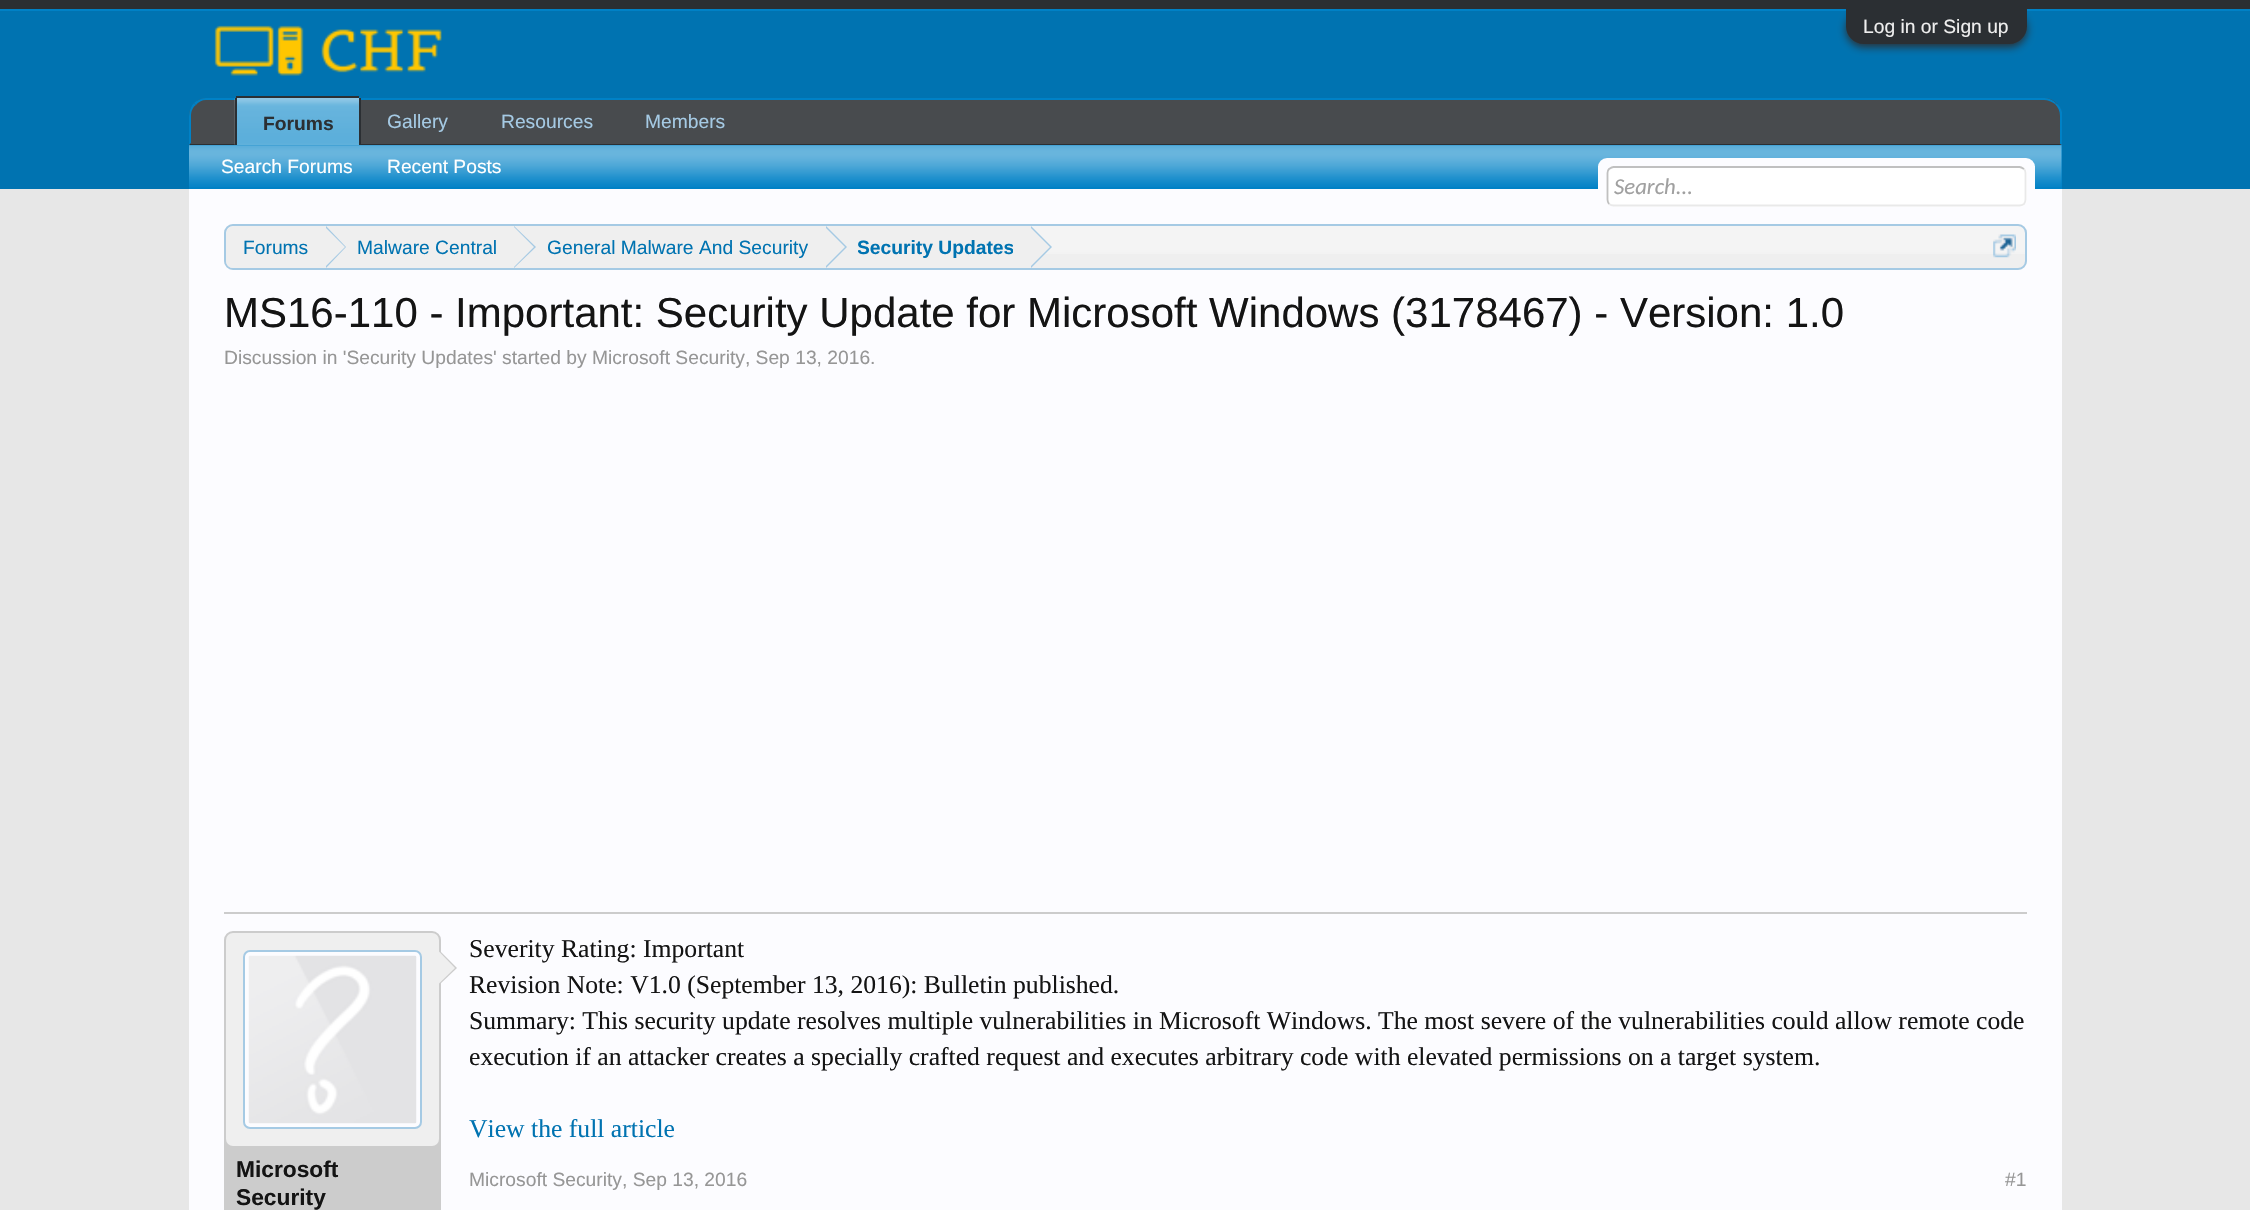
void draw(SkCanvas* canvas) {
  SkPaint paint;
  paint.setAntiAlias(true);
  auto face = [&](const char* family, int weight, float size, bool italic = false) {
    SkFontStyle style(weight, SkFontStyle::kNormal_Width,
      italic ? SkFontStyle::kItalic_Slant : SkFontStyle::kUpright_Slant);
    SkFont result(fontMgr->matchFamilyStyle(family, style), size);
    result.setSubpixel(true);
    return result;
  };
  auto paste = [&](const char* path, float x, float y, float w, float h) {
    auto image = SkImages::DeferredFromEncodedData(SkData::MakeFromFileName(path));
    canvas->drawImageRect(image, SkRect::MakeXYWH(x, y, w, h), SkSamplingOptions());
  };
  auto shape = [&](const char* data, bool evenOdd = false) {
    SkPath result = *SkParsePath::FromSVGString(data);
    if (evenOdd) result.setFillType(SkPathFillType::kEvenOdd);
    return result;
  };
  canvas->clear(0xffe7e7e7);
  {
    const struct { float x, y, w, h; SkColor color; } items[] = {
      {0, 0, 2250, 9, 0xff2b2f33},
      {0, 9, 2250, 2, 0xff0081c6},
      {0, 11, 2250, 178, 0xff0073b1},
    };
    for (auto [x, y, w, h, color] : items) {
      paint.setColor(color);
      canvas->drawRect(SkRect::MakeXYWH(x, y, w, h), paint);
    }
  }
  paint.setColor(0xff2b2f33);
  paint.setMaskFilter(SkMaskFilter::MakeBlur(kNormal_SkBlurStyle, 4.5f));
  canvas->drawRoundRect(SkRect::MakeXYWH(1846, 12, 181, 35), 17.5f, 17.5f, paint);
  paint.setMaskFilter(nullptr);
  canvas->drawPath(shape("M1846 9H2027V26.5C2027 36 2019 44 2009.5 44H1863.5C1854 44 1846 36 1846 26.5Z"), paint);
  paste("img/1.png", 214, 25, 228, 51);
  paint.setColor(0xff484b4e);
  canvas->drawPath(shape("M207 98H2044C2054 98 2062 106 2062 116V145H189V116C189 106 197 98 207 98Z"), paint);
  paint.setColor(0xff0081c6);
  canvas->drawPath(shape("M206 98C202 98 197 100 194 103L196 105C198 102 202 100 206 100H2044C2048 100 2052 102 2055 104L2056 103C2053 100 2049 98 2044 98Z"), paint);
  canvas->drawPath(shape("M2062 145L2060 144V116C2060 111 2058 107 2055 104L2056 103C2059 105 2061 108 2062 112Z"), paint);
  paint.setColor(0xff2b2f33);
  canvas->drawPath(shape("M2061 145H189L191 143V144H2060Z"), paint);
  paint.setColor(0xff0081c6);
  canvas->drawPath(shape("M189 116V145L191 143V116C191 111 193 107 196 105L194 103C191 106 189 111 189 116Z"), paint);
  canvas->drawPath(shape("M239 96H357C359 96 361 98 361 100V145H235V100C235 98 237 96 239 96Z"), paint);
  paste("img/2.png", 234, 98, 125, 47);
  {
    const struct { float x, y, w, h; SkColor color; } items[] = {
      {236, 96, 123, 2, 0xff2b2f33},
      {359, 98, 2, 47, 0xff2b2f33},
      {235, 98, 2, 47, 0xff2b2f33},
      {189, 145, 1873, 44, 0xff0081c6},
    };
    for (auto [x, y, w, h, color] : items) {
      paint.setColor(color);
      canvas->drawRect(SkRect::MakeXYWH(x, y, w, h), paint);
    }
  }
  paste("img/3.png", 189, 145, 1873, 42);
  paint.setColor(0xfffcfcff);
  canvas->drawRect(SkRect::MakeXYWH(189, 189, 1873, 1021), paint);
  canvas->drawRoundRect(SkRect::MakeXYWH(1598, 158, 437, 49), 9, 9, paint);
  canvas->drawRect(SkRect::MakeXYWH(1598, 166, 437, 1), paint);
  paint.setColor(0xffffffff);
  canvas->drawRoundRect(SkRect::MakeXYWH(1607, 166, 420, 41), 7, 7, paint);
  paint.setStroke(true);
  paint.setStrokeWidth(1.8f);
  paint.setColor(0xffe9e9e9);
  canvas->drawPath(shape("M2024 169C2025 170 2025.5 171.5 2025.5 173V199.5C2025.5 201 2025 202.5 2024 204C2022.5 205 2021 205.5 2019.5 205.5H1613.5C1612 205.5 1610.5 205 1609 204"), paint);
  paint.setColor(0xffc0c0c0);
  canvas->drawPath(shape("M1609 204C1608 202.5 1607.5 201 1607.5 199.5V173C1607.5 171.5 1608 170 1609 169C1610.5 168 1612 167 1613.5 167H2019.5C2021 167 2022.5 168 2024 169"), paint);
  paint.setStroke(false);
  paint.setColor(0xffefefef);
  canvas->drawRoundRect(SkRect::MakeXYWH(224, 224, 1803, 46), 9, 9, paint);
  paste("img/4.png", 224, 226, 1802, 28);
  paint.setStroke(true);
  paint.setStrokeWidth(2);
  paint.setColor(0xffa5cae4);
  canvas->drawRoundRect(SkRect::MakeXYWH(225, 225, 1801, 44), 8, 8, paint);
  canvas->save();
  canvas->clipPath(shape("M233 226H2018C2022 226 2025 229 2025 233V261C2025 265 2022 268 2018 268H233C229 268 226 265 226 261V233C226 229 229 226 233 226Z"), true);
  paint.setStroke(false);
  paint.setColor(0xffefefef);
  canvas->drawPath(shape("M235 226H326V270H235C230 270 226 266 226 261V235C226 230 230 226 235 226Z"), paint);
  canvas->restore();
  canvas->drawRect(SkRect::MakeXYWH(326, 226, 705, 28), paint);
  paint.setColor(0xffa5cae4);
  canvas->drawPath(shape("M326 268V226L346 247Z"), paint);
  paint.setColor(0xffefefef);
  canvas->drawPath(shape("M324 268V226L345 247Z"), paint);
  paint.setColor(0xffa5cae4);
  canvas->drawPath(shape("M514 268V226L536 247Z"), paint);
  paint.setColor(0xffefefef);
  canvas->drawPath(shape("M513 268V226L534 247Z"), paint);
  paint.setColor(0xffa5cae4);
  canvas->drawPath(shape("M826 268V226L847 247Z"), paint);
  paint.setColor(0xffefefef);
  canvas->drawPath(shape("M824 268V226L845 247Z"), paint);
  paint.setColor(0xffa5cae4);
  canvas->drawPath(shape("M1031 268V226L1052 247Z"), paint);
  paint.setColor(0xffefefef);
  canvas->drawPath(shape("M1029 268V226L1050 247Z"), paint);
  paste("img/5.png", 1993, 234, 23, 24);
  paint.setColor(0xffcccccc);
  canvas->drawRect(SkRect::MakeXYWH(224, 912, 1803, 2), paint);
  canvas->drawRoundRect(SkRect::MakeXYWH(225, 932, 215, 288), 8, 8, paint);
  paint.setStroke(true);
  canvas->drawRoundRect(SkRect::MakeXYWH(225, 932, 215, 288), 8, 8, paint);
  paint.setStroke(false);
  paint.setColor(0xffefefef);
  canvas->drawRoundRect(SkRect::MakeXYWH(226, 933, 213, 213), 7, 7, paint);
  paint.setColor(0xfffcfcff);
  canvas->drawRoundRect(SkRect::MakeXYWH(244, 951, 177, 177), 6, 6, paint);
  paint.setStroke(true);
  paint.setColor(0xffa5cae4);
  canvas->drawRoundRect(SkRect::MakeXYWH(244, 951, 177, 177), 6, 6, paint);
  paste("img/6.png", 248, 955, 169, 169);
  paint.setStroke(false);
  paint.setColor(0xffcccccc);
  canvas->drawPath(shape("M439 985V950L457 968Z"), paint);
  paint.setColor(0xffefefef);
  canvas->drawPath(shape("M437.5 985V950L455 968Z"), paint);
  auto f0 = face("Liberation Sans", 400, 19.25f);
  canvas->drawString("Log in or Sign up", 1863, 33, f0, paint);
  paint.setColor(0xffa5cae4);
  {
    const struct { const char* s; float x, y; } items[] = {
      {"Gallery", 387, 128},
      {"Resources", 501, 128},
      {"Members", 645, 128},
    };
    for (auto [s, x, y] : items) {
      canvas->drawString(s, x, y, f0, paint);
    }
  }
  auto f1 = face("Liberation Sans", 700, 19.25f);
  paint.setColor(0xff2b2f33);
  canvas->drawString("Forums", 263, 130, f1, paint);
  paint.setColor(0xffffffff);
  canvas->drawString("Search Forums", 221, 173, f0, paint);
  canvas->drawString("Recent Posts", 387, 173, f0, paint);
  auto f2 = face("Carlito", 400, 22.75f, true);
  paint.setColor(0xffa0a0a0);
  canvas->drawString("Search...", 1614, 194, f2, paint);
  paint.setColor(0xff0073b1);
  {
    const struct { const char* s; float x, y; } items[] = {
      {"Forums", 243, 254},
      {"Malware Central", 357, 254},
      {"General Malware And Security", 547, 254},
    };
    for (auto [s, x, y] : items) {
      canvas->drawString(s, x, y, f0, paint);
    }
  }
  canvas->save();
  canvas->clipRect(SkRect::MakeXYWH(858, 226, 155, 42));
  canvas->drawString("Security Updates", 857, 254, f1, paint);
  canvas->restore();
  auto f3 = face("Liberation Sans", 400, 42);
  paint.setColor(0xff141414);
  canvas->drawString("MS16-110 - Important: Security Update for Microsoft Windows (3178467) - Version: 1.0", 224, 327, f3, paint);
  paint.setColor(0xff969696);
  canvas->drawString("Discussion in 'Security Updates' started by Microsoft Security, Sep 13, 2016.", 224, 364, f0, paint);
  auto f4 = face("Liberation Sans", 700, 22.75f);
  paint.setColor(0xff141414);
  canvas->drawString("Microsoft", 236, 1177, f4, paint);
  canvas->drawString("Security", 236, 1205, f4, paint);
  auto f5 = face("Liberation Serif", 400, 25.67f);
  {
    const struct { const char* s; float x, y; } items[] = {
      {"Severity Rating: Important", 469, 957},
      {"Revision Note: V1.0 (September 13, 2016): Bulletin published.", 469, 993},
      {"Summary: This security update resolves multiple vulnerabilities in Microsoft Windows. The most severe of the vulnerabilities could allow remote code", 469, 1029},
      {"execution if an attacker creates a specially crafted request and executes arbitrary code with elevated permissions on a target system.", 469, 1065},
    };
    for (auto [s, x, y] : items) {
      canvas->drawString(s, x, y, f5, paint);
    }
  }
  paint.setColor(0xff0073b1);
  canvas->drawString("View the full article", 469, 1137, f5, paint);
  paint.setColor(0xff969696);
  canvas->drawString("Microsoft Security, Sep 13, 2016", 469, 1186, f0, paint);
  canvas->drawString("#1", 2005, 1186, f0, paint);
}
